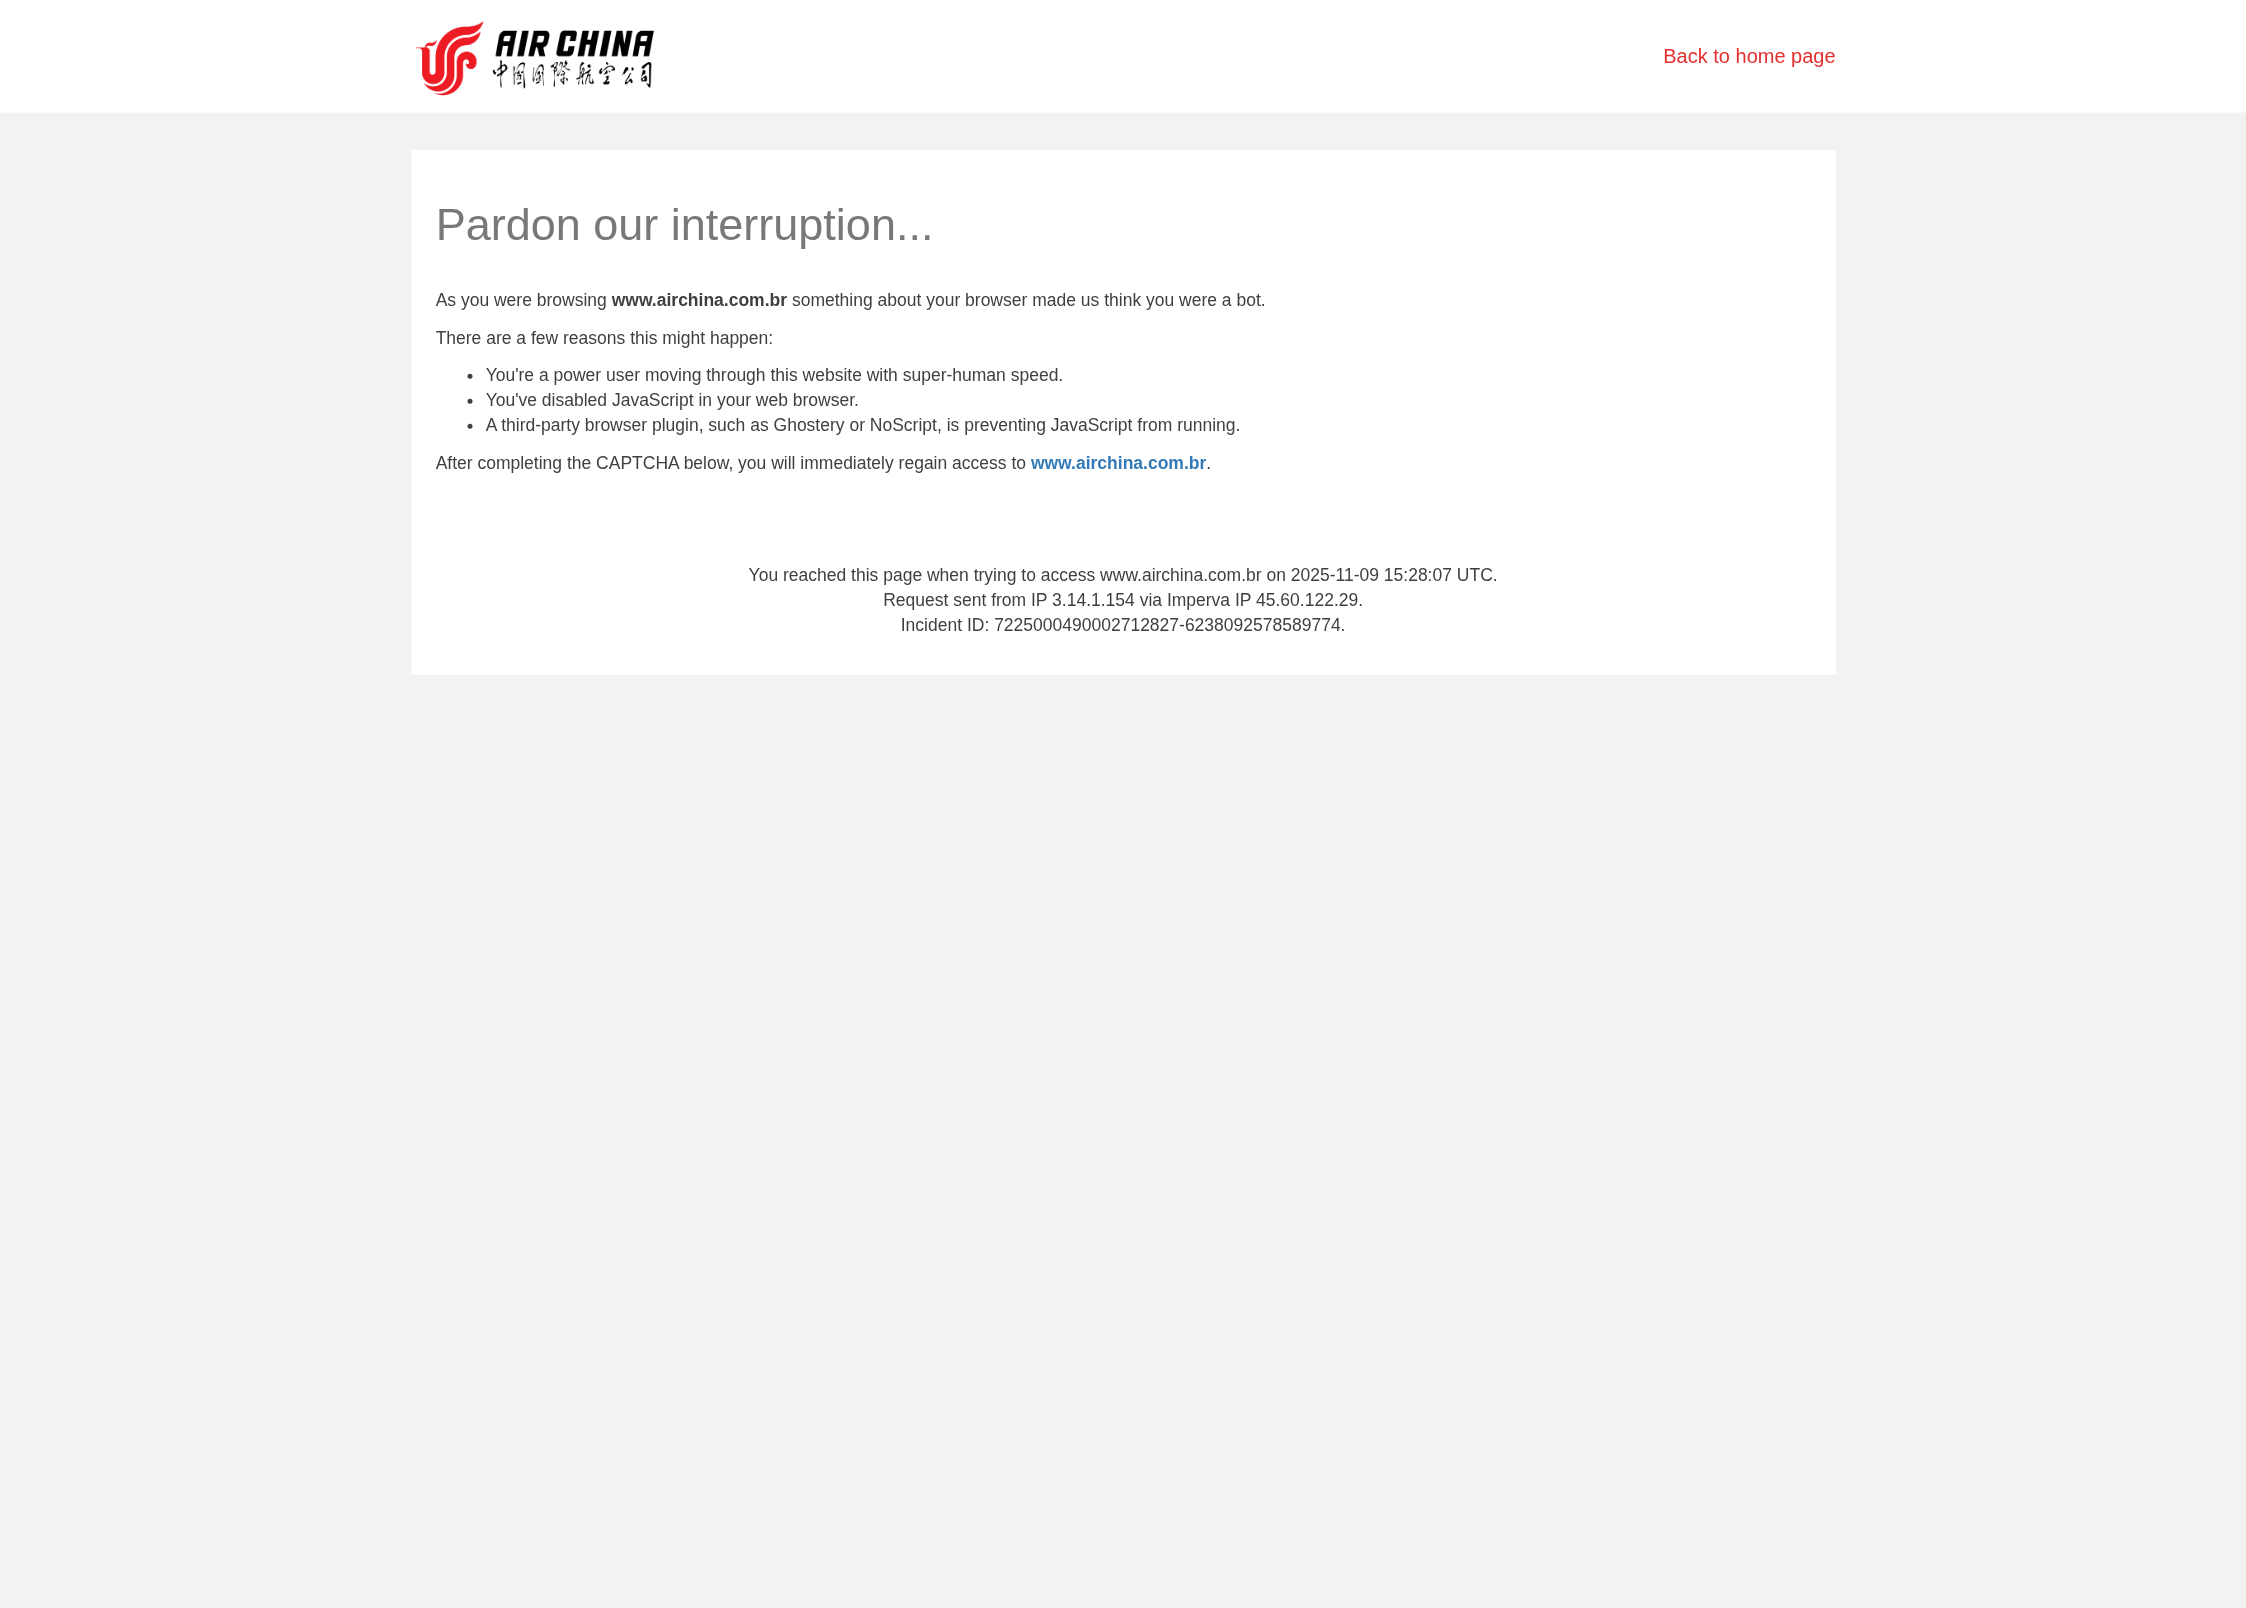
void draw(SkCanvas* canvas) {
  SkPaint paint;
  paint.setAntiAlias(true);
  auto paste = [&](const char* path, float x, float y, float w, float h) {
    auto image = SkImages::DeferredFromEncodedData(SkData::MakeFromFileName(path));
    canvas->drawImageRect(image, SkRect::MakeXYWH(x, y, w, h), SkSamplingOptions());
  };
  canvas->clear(0xffffffff);
  paste("img/1.png", 0, 21, 2246, 1587);
}
